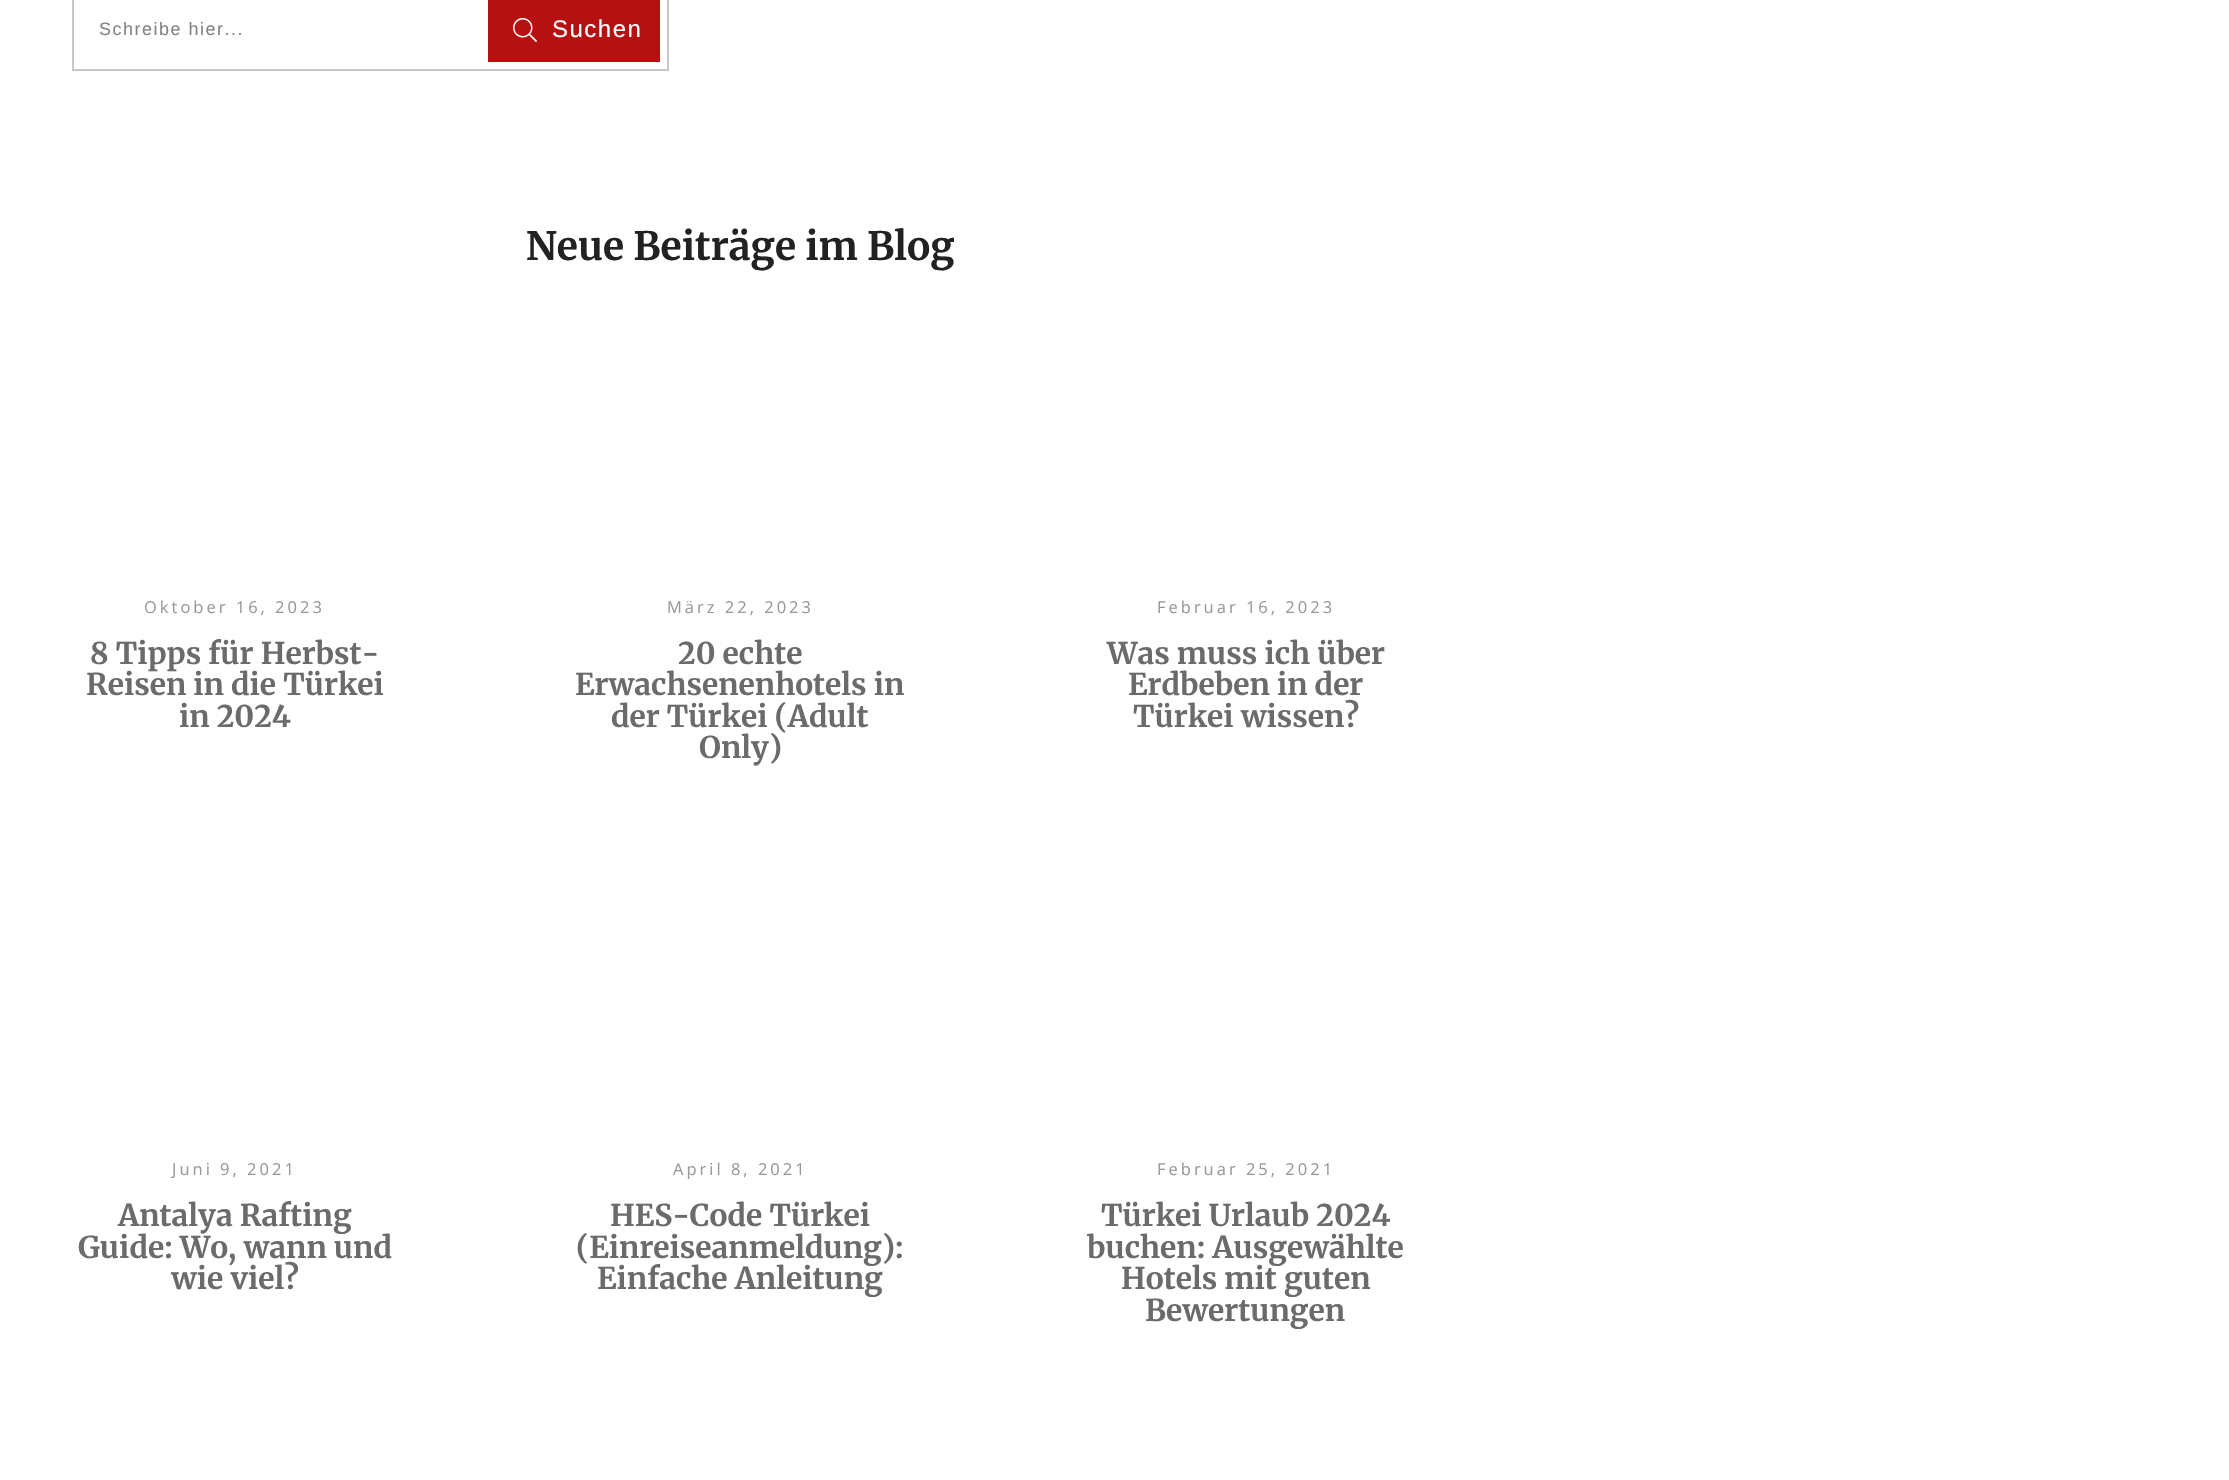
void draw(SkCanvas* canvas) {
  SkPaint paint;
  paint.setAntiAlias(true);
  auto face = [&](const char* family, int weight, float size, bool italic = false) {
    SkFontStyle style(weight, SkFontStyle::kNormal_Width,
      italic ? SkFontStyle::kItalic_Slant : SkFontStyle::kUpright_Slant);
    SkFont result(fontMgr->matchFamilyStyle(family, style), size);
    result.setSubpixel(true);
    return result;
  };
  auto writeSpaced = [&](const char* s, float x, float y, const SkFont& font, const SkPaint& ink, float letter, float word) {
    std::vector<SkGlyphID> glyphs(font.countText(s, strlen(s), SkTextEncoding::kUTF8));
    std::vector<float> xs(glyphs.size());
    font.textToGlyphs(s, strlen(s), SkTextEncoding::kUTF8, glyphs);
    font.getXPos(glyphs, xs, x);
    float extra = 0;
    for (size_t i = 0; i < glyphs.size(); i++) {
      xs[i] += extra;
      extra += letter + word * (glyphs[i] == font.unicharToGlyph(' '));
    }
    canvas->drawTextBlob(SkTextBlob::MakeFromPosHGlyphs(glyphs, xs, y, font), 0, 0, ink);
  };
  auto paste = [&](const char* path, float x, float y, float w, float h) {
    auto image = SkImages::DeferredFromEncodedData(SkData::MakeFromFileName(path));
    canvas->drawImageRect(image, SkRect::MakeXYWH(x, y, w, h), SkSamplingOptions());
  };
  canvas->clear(0xffffffff);
  paint.setStroke(true);
  paint.setStrokeWidth(2);
  paint.setColor(0xffc7c7c7);
  canvas->drawRect(SkRect::MakeXYWH(73, -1, 595, 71), paint);
  paint.setStroke(false);
  paint.setColor(0xffb61111);
  canvas->drawRect(SkRect::MakeXYWH(488, 0, 172, 62), paint);
  paste("img/1.png", 513, 18, 24, 24);
  auto f0 = face("Liberation Sans", 400, 18);
  paint.setColor(0xff858585);
  writeSpaced("Schreibe hier...", 99, 35, f0, paint, 1.5f, 0);
  auto f1 = face("Liberation Sans", 400, 24);
  paint.setColor(0xffffffff);
  writeSpaced("Suchen", 552, 37, f1, paint, 1.5f, 0);
  auto f2 = face("Merriweather", 700, 39);
  paint.setColor(0xff222222);
  canvas->drawString("Neue Beiträge im Blog", 526, 260, f2, paint);
  auto f3 = face("Open Sans", 400, 16.5f);
  paint.setColor(0xff999999);
  writeSpaced("Oktober 16, 2023", 144, 613, f3, paint, 3, 0);
  auto f4 = face("Merriweather", 700, 30);
  paint.setColor(0xff6a6b6c);
  {
    const struct { const char* s; float x, y; } items[] = {
      {"8 Tipps für Herbst-", 90, 664},
      {"Reisen in die Türkei", 86, 695},
      {"in 2024", 179, 727},
    };
    for (auto [s, x, y] : items) {
      canvas->drawString(s, x, y, f4, paint);
    }
  }
  paint.setColor(0xff999999);
  writeSpaced("März 22, 2023", 667, 613, f3, paint, 3, 0);
  paint.setColor(0xff6a6b6c);
  {
    const struct { const char* s; float x, y; } items[] = {
      {"20 echte", 678, 664},
      {"Erwachsenenhotels in", 575, 695},
      {"der Türkei (Adult", 611, 727},
      {"Only)", 699, 758},
    };
    for (auto [s, x, y] : items) {
      canvas->drawString(s, x, y, f4, paint);
    }
  }
  paint.setColor(0xff999999);
  writeSpaced("Februar 16, 2023", 1157, 613, f3, paint, 3, 0);
  paint.setColor(0xff6a6b6c);
  {
    const struct { const char* s; float x, y; } items[] = {
      {"Was muss ich über", 1107, 664},
      {"Erdbeben in der", 1128, 695},
      {"Türkei wissen?", 1133, 727},
    };
    for (auto [s, x, y] : items) {
      canvas->drawString(s, x, y, f4, paint);
    }
  }
  paint.setColor(0xff999999);
  writeSpaced("Juni 9, 2021", 172, 1175, f3, paint, 3, 0);
  paint.setColor(0xff6a6b6c);
  {
    const struct { const char* s; float x, y; } items[] = {
      {"Antalya Rafting", 118, 1226},
      {"Guide: Wo, wann und", 78, 1258},
      {"wie viel?", 171, 1289},
    };
    for (auto [s, x, y] : items) {
      canvas->drawString(s, x, y, f4, paint);
    }
  }
  paint.setColor(0xff999999);
  writeSpaced("April 8, 2021", 673, 1175, f3, paint, 3, 0);
  paint.setColor(0xff6a6b6c);
  {
    const struct { const char* s; float x, y; } items[] = {
      {"HES-Code Türkei", 610, 1226},
      {"(Einreiseanmeldung):", 576, 1258},
      {"Einfache Anleitung", 597, 1289},
    };
    for (auto [s, x, y] : items) {
      canvas->drawString(s, x, y, f4, paint);
    }
  }
  paint.setColor(0xff999999);
  writeSpaced("Februar 25, 2021", 1157, 1175, f3, paint, 3, 0);
  paint.setColor(0xff6a6b6c);
  {
    const struct { const char* s; float x, y; } items[] = {
      {"Türkei Urlaub 2024", 1101, 1226},
      {"buchen: Ausgewählte", 1087, 1258},
      {"Hotels mit guten", 1121, 1289},
      {"Bewertungen", 1145, 1321},
    };
    for (auto [s, x, y] : items) {
      canvas->drawString(s, x, y, f4, paint);
    }
  }
}
